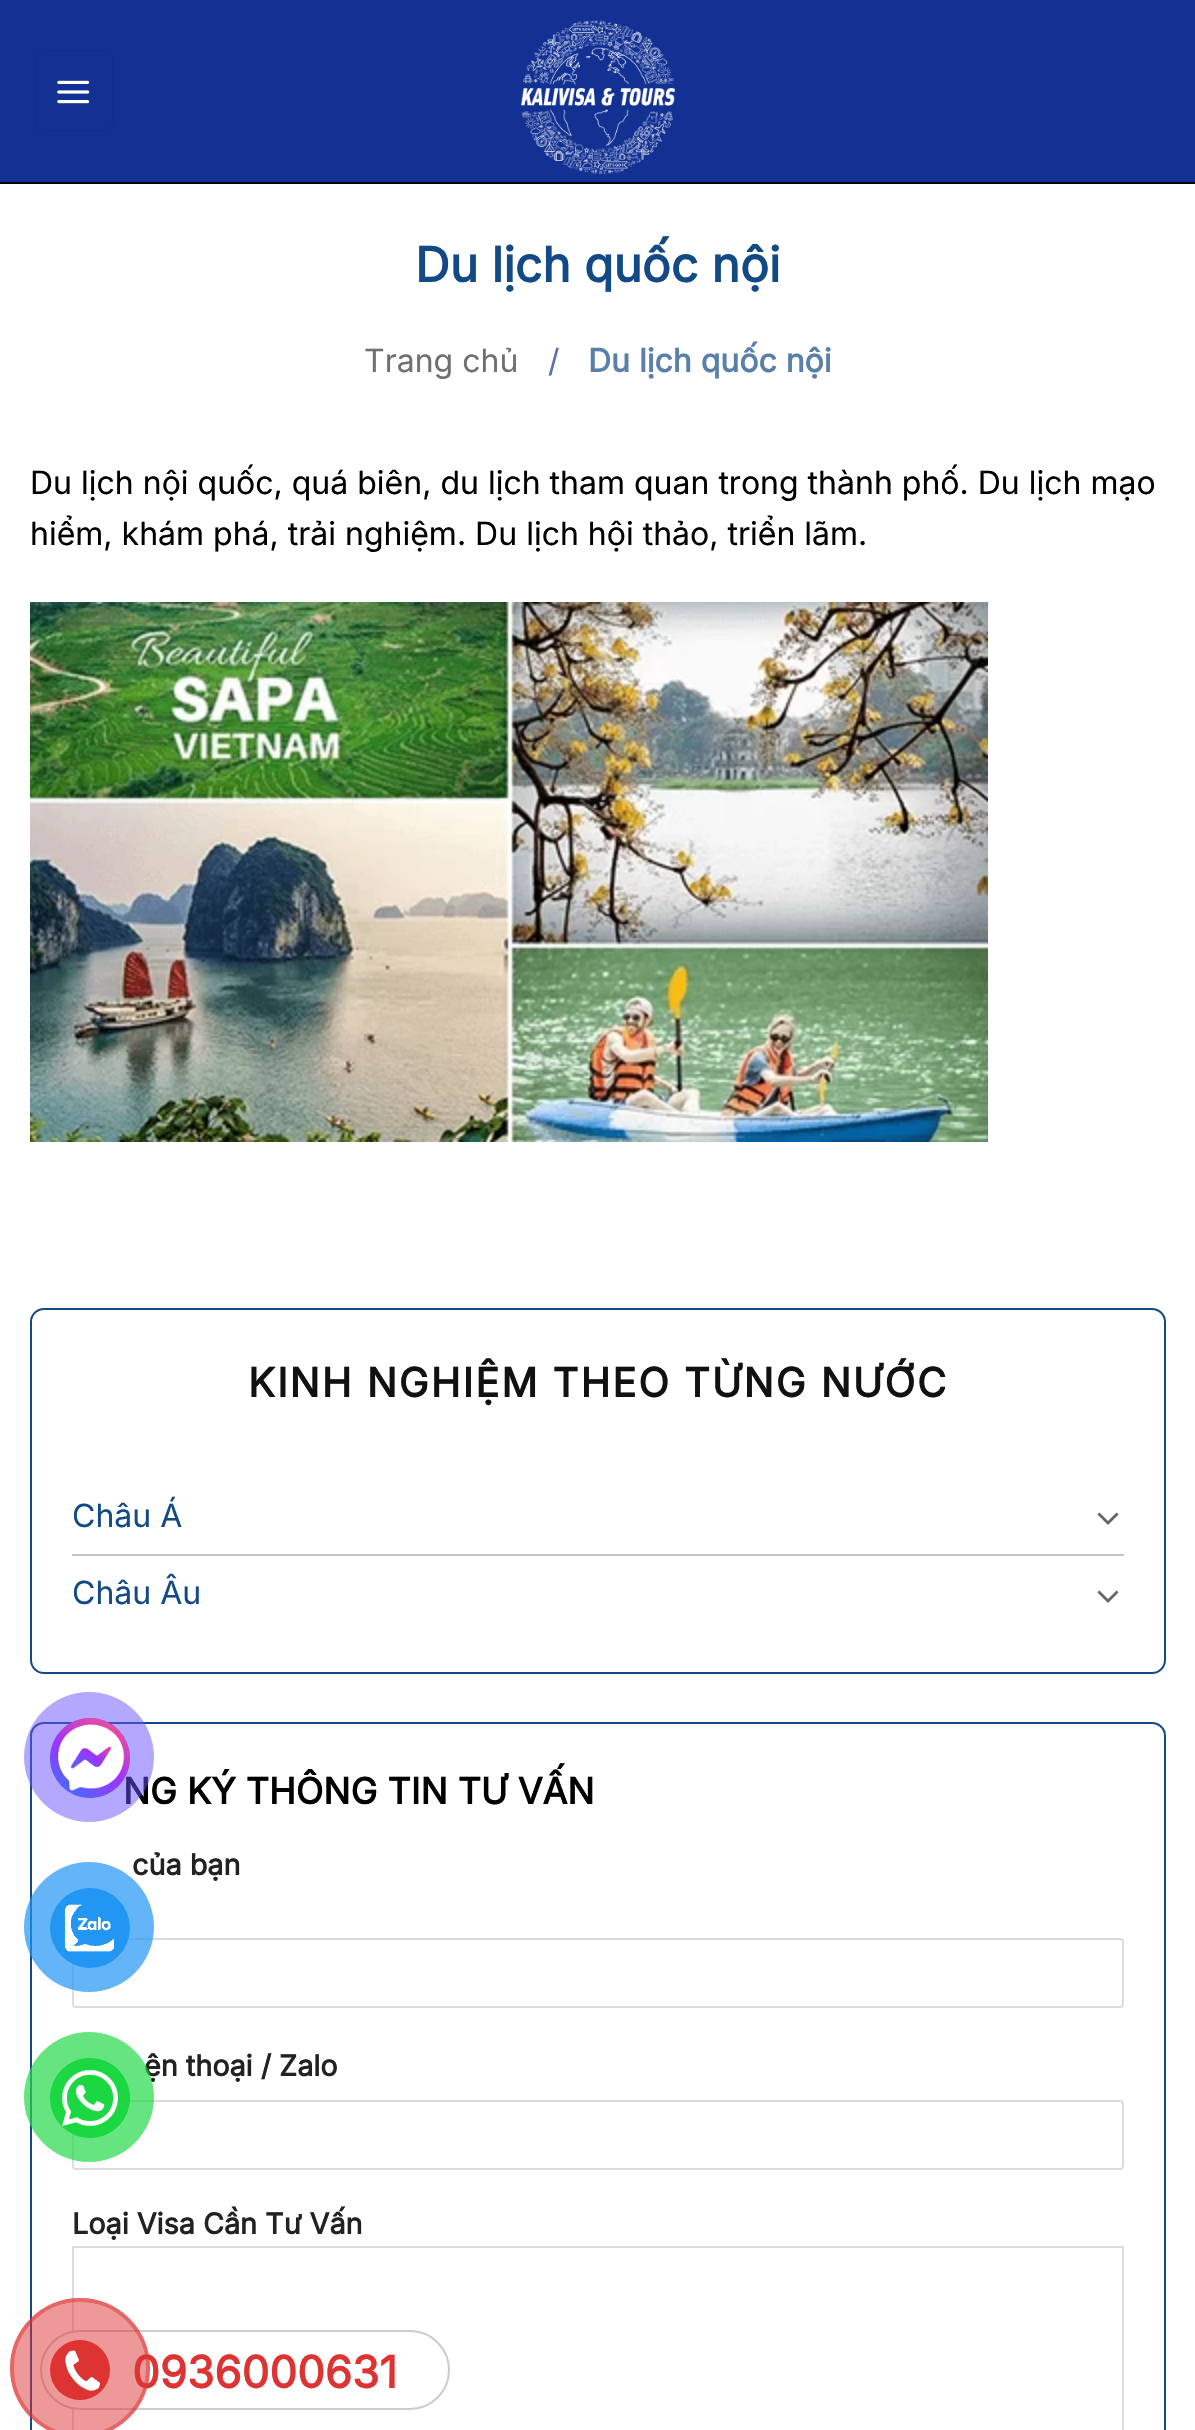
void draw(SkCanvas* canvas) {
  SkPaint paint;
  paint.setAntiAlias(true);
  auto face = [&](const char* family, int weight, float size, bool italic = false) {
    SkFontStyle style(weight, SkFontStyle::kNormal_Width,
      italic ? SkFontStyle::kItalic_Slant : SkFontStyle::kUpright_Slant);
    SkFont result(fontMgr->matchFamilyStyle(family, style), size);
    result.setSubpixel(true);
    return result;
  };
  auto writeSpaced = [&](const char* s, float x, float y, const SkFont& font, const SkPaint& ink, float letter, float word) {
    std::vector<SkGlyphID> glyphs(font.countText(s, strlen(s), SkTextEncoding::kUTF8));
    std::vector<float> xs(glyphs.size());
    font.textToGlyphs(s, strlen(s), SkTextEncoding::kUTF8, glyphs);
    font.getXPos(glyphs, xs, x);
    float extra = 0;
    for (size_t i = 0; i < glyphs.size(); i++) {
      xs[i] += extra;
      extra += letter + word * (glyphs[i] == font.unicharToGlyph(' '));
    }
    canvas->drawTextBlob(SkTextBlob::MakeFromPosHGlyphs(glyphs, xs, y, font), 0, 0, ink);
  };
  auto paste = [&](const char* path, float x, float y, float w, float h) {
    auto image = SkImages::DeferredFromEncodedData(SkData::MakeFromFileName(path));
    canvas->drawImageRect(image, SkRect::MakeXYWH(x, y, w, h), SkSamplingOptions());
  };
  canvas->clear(0xffffffff);
  paint.setColor(0xff123193);
  canvas->drawRect(SkRect::MakeXYWH(0, 0, 1195, 182), paint);
  paint.setColor(0xff000000);
  canvas->drawRect(SkRect::MakeXYWH(0, 182, 1195, 2), paint);
  paint.setStroke(true);
  paint.setStrokeWidth(2);
  paint.setColor(0xff112f8c);
  canvas->drawRoundRect(SkRect::MakeXYWH(35, 51, 78, 80), 9, 9, paint);
  paste("img/1.png", 57, 80, 33, 24);
  paste("img/2.png", 521, 20, 154, 154);
  paste("img/3.png", 30, 602, 958, 540);
  paint.setColor(0xff134a86);
  canvas->drawRoundRect(SkRect::MakeXYWH(31, 1309, 1134, 364), 13, 13, paint);
  paste("img/4.png", 1097, 1512, 22, 13);
  paint.setStroke(false);
  paint.setColor(0xffc4c4c4);
  canvas->drawRect(SkRect::MakeXYWH(72, 1554, 1052, 2), paint);
  paste("img/4.png", 1097, 1590, 22, 13);
  paint.setStroke(true);
  paint.setColor(0xff134a86);
  canvas->drawRoundRect(SkRect::MakeXYWH(31, 1723, 1134, 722), 13, 13, paint);
  paint.setColor(0xffdddddd);
  canvas->drawRoundRect(SkRect::MakeXYWH(73, 1939, 1050, 68), 3, 3, paint);
  canvas->drawRoundRect(SkRect::MakeXYWH(73, 2101, 1050, 68), 3, 3, paint);
  canvas->drawRect(SkRect::MakeXYWH(73, 2247, 1050, 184), paint);
  paint.setStroke(false);
  paint.setColor(0xffffffff);
  canvas->drawRoundRect(SkRect::MakeXYWH(41, 2331, 408, 78), 39, 39, paint);
  paint.setStroke(true);
  paint.setColor(0xffcccccc);
  canvas->drawRoundRect(SkRect::MakeXYWH(41, 2331, 408, 78), 39, 39, paint);
  auto f0 = face("Inter", 700, 48);
  paint.setStroke(false);
  paint.setColor(0xff134a86);
  canvas->drawString("Du lịch quốc nội", 415, 282, f0, paint);
  auto f1 = face("Inter", 400, 32);
  paint.setColor(0xff707070);
  canvas->drawString("Trang chủ", 364, 372, f1, paint);
  paint.setColor(0xff596fb3);
  canvas->drawString("/", 548, 372, f1, paint);
  auto f2 = face("Inter", 700, 32);
  paint.setColor(0xff5a80aa);
  canvas->drawString("Du lịch quốc nội", 588, 372, f2, paint);
  paint.setColor(0xff000000);
  canvas->drawString("Du lịch nội quốc, quá biên, du lịch tham quan trong thành phố. Du lịch mạo", 30, 494, f1, paint);
  canvas->drawString("hiểm, khám phá, trải nghiệm. Du lịch hội thảo, triển lãm.", 30, 545, f1, paint);
  auto f3 = face("Inter", 700, 40);
  paint.setColor(0xff111111);
  writeSpaced("KINH NGHIỆM THEO TỪNG NƯỚC", 248, 1397, f3, paint, 2, 0);
  paint.setColor(0xff134a86);
  canvas->drawString("Châu Á", 72, 1527, f1, paint);
  canvas->drawString("Châu Âu", 72, 1604, f1, paint);
  auto f4 = face("Inter", 700, 36);
  paint.setColor(0xff000000);
  canvas->drawString("NG KÝ THÔNG TIN TƯ VẤN", 123, 1804, f4, paint);
  auto f5 = face("Inter", 700, 28.75f);
  paint.setColor(0xff222222);
  {
    const struct { const char* s; float x, y; } items[] = {
      {"của bạn", 132, 1875},
      {"ện thoại / Zalo", 144, 2076},
      {"Loại Visa Cần Tư Vấn", 72, 2234},
    };
    for (auto [s, x, y] : items) {
      canvas->drawString(s, x, y, f5, paint);
    }
  }
  paint.setColor(0x806a4ffe);
  canvas->drawCircle(89, 1757, 65, paint);
  paint.setColor(0xff6a4ffe);
  canvas->drawCircle(90, 1758, 40, paint);
  paste("img/5.png", 50, 1718, 80, 80);
  paint.setColor(0xb32196f3);
  canvas->drawCircle(89, 1927, 65, paint);
  paint.setColor(0xff2196f3);
  canvas->drawCircle(90, 1928, 40, paint);
  paste("img/6.png", 64, 1904, 50, 48);
  paint.setColor(0xb323d948);
  canvas->drawCircle(89, 2097, 65, paint);
  paint.setColor(0xff1cd741);
  canvas->drawCircle(90, 2098, 40, paint);
  paste("img/7.png", 50, 2058, 80, 80);
  auto f6 = face("Inter", 700, 44);
  paint.setColor(0xffdd3333);
  canvas->drawString("0936000631", 132, 2388, f6, paint);
  paint.setColor(0x80dd3333);
  canvas->drawCircle(80, 2368, 70, paint);
  paint.setStroke(true);
  paint.setStrokeWidth(4);
  canvas->drawCircle(80, 2368, 68, paint);
  paint.setStroke(false);
  paint.setColor(0xffdd3333);
  canvas->drawCircle(80, 2370, 30, paint);
  paste("img/8.png", 65, 2350, 35, 41);
}
